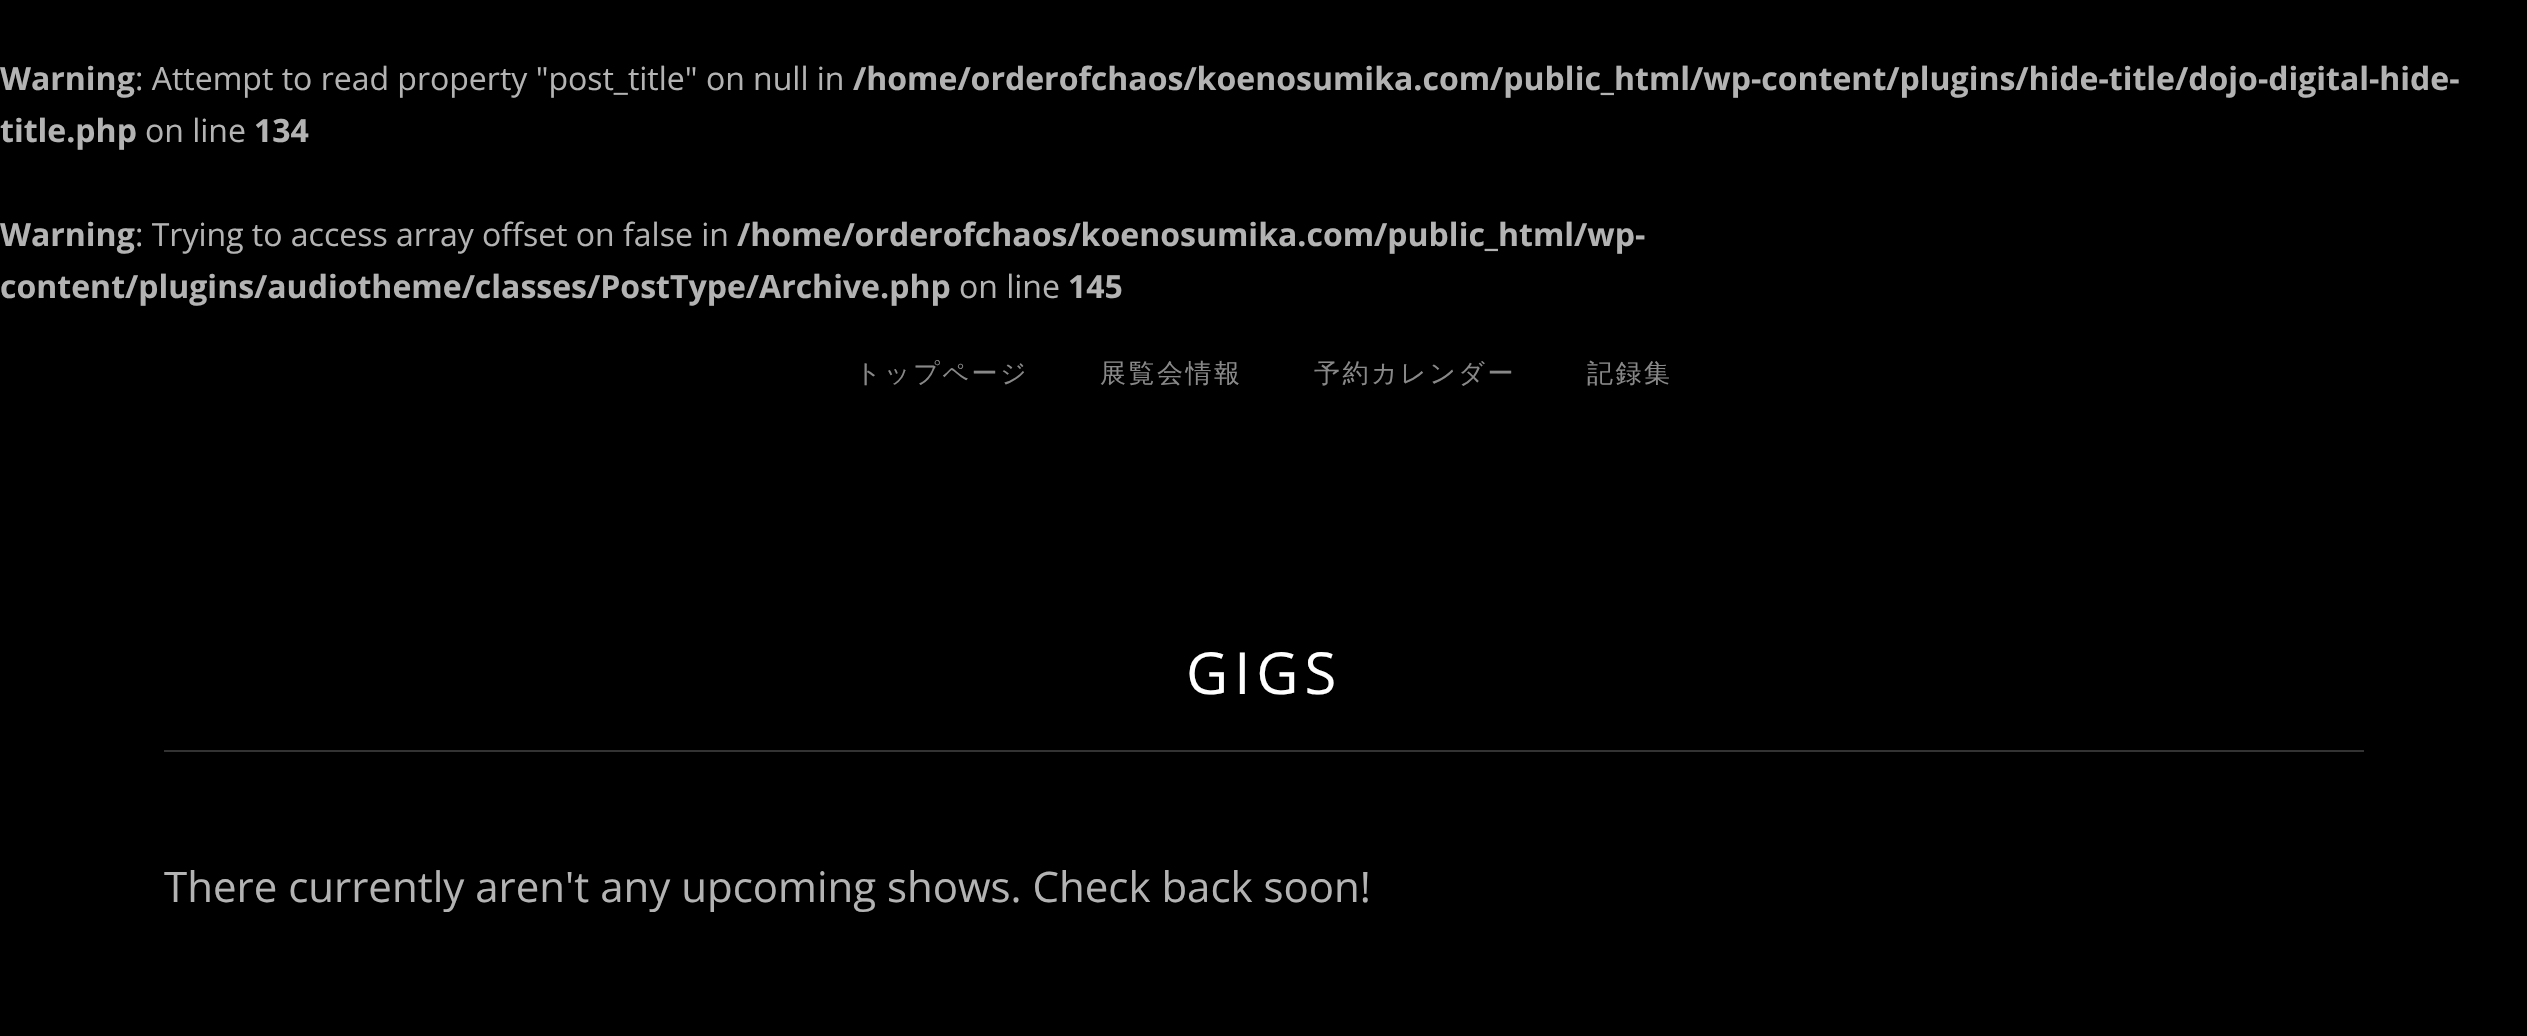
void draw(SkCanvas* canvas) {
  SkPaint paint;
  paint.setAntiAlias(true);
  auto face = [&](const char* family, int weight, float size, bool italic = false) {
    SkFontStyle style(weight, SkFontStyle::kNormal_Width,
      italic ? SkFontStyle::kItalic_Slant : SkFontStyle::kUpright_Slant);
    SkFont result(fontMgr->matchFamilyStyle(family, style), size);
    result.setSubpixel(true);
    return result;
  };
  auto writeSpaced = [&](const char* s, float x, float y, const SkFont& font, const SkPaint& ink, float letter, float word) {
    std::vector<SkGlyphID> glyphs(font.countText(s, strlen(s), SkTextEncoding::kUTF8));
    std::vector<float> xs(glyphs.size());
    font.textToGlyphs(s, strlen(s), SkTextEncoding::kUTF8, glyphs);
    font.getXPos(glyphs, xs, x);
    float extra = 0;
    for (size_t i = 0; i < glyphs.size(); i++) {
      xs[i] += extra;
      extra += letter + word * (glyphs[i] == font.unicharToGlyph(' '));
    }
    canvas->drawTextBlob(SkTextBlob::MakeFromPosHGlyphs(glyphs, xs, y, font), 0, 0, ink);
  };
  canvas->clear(0xff000000);
  paint.setColor(0xff333333);
  canvas->drawRect(SkRect::MakeXYWH(164, 750, 2200, 2), paint);
  auto f0 = face("Open Sans", 700, 32);
  paint.setColor(0xffb3b3b3);
  canvas->drawString("Warning", 0, 90, f0, paint);
  auto f1 = face("Open Sans", 400, 32);
  canvas->drawString(": Attempt to read property \"post_title\" on null in", 135, 90, f1, paint);
  canvas->drawString("/home/orderofchaos/koenosumika.com/public_html/wp-content/plugins/hide-title/dojo-digital-hide-", 853, 90, f0, paint);
  canvas->drawString("title.php", 0, 142, f0, paint);
  canvas->drawString("on line", 145, 142, f1, paint);
  canvas->drawString("134", 254, 142, f0, paint);
  canvas->drawString("Warning", 0, 246, f0, paint);
  canvas->drawString(": Trying to access array offset on false in", 135, 246, f1, paint);
  canvas->drawString("/home/orderofchaos/koenosumika.com/public_html/wp-", 737, 246, f0, paint);
  canvas->drawString("content/plugins/audiotheme/classes/PostType/Archive.php", 0, 298, f0, paint);
  canvas->drawString("on line", 959, 298, f1, paint);
  canvas->drawString("145", 1068, 298, f0, paint);
  auto f2 = face("WenQuanYi Zen Hei", 500, 26);
  paint.setColor(0xff888888);
  {
    const struct { const char* s; float x, y; } items[] = {
      {"トップページ", 855, 382},
      {"展覧会情報", 1100, 382},
      {"予約カレンダー", 1314, 382},
      {"記録集", 1587, 382},
    };
    for (auto [s, x, y] : items) {
      writeSpaced(s, x, y, f2, paint, 2.5f, 0);
    }
  }
  auto f3 = face("Open Sans", 400, 58);
  paint.setColor(0xffffffff);
  writeSpaced("GIGS", 1186, 694, f3, paint, 6, 0);
  auto f4 = face("Open Sans", 400, 42);
  paint.setColor(0xffb3b3b3);
  canvas->drawString("There currently aren't any upcoming shows. Check back soon!", 164, 902, f4, paint);
}
